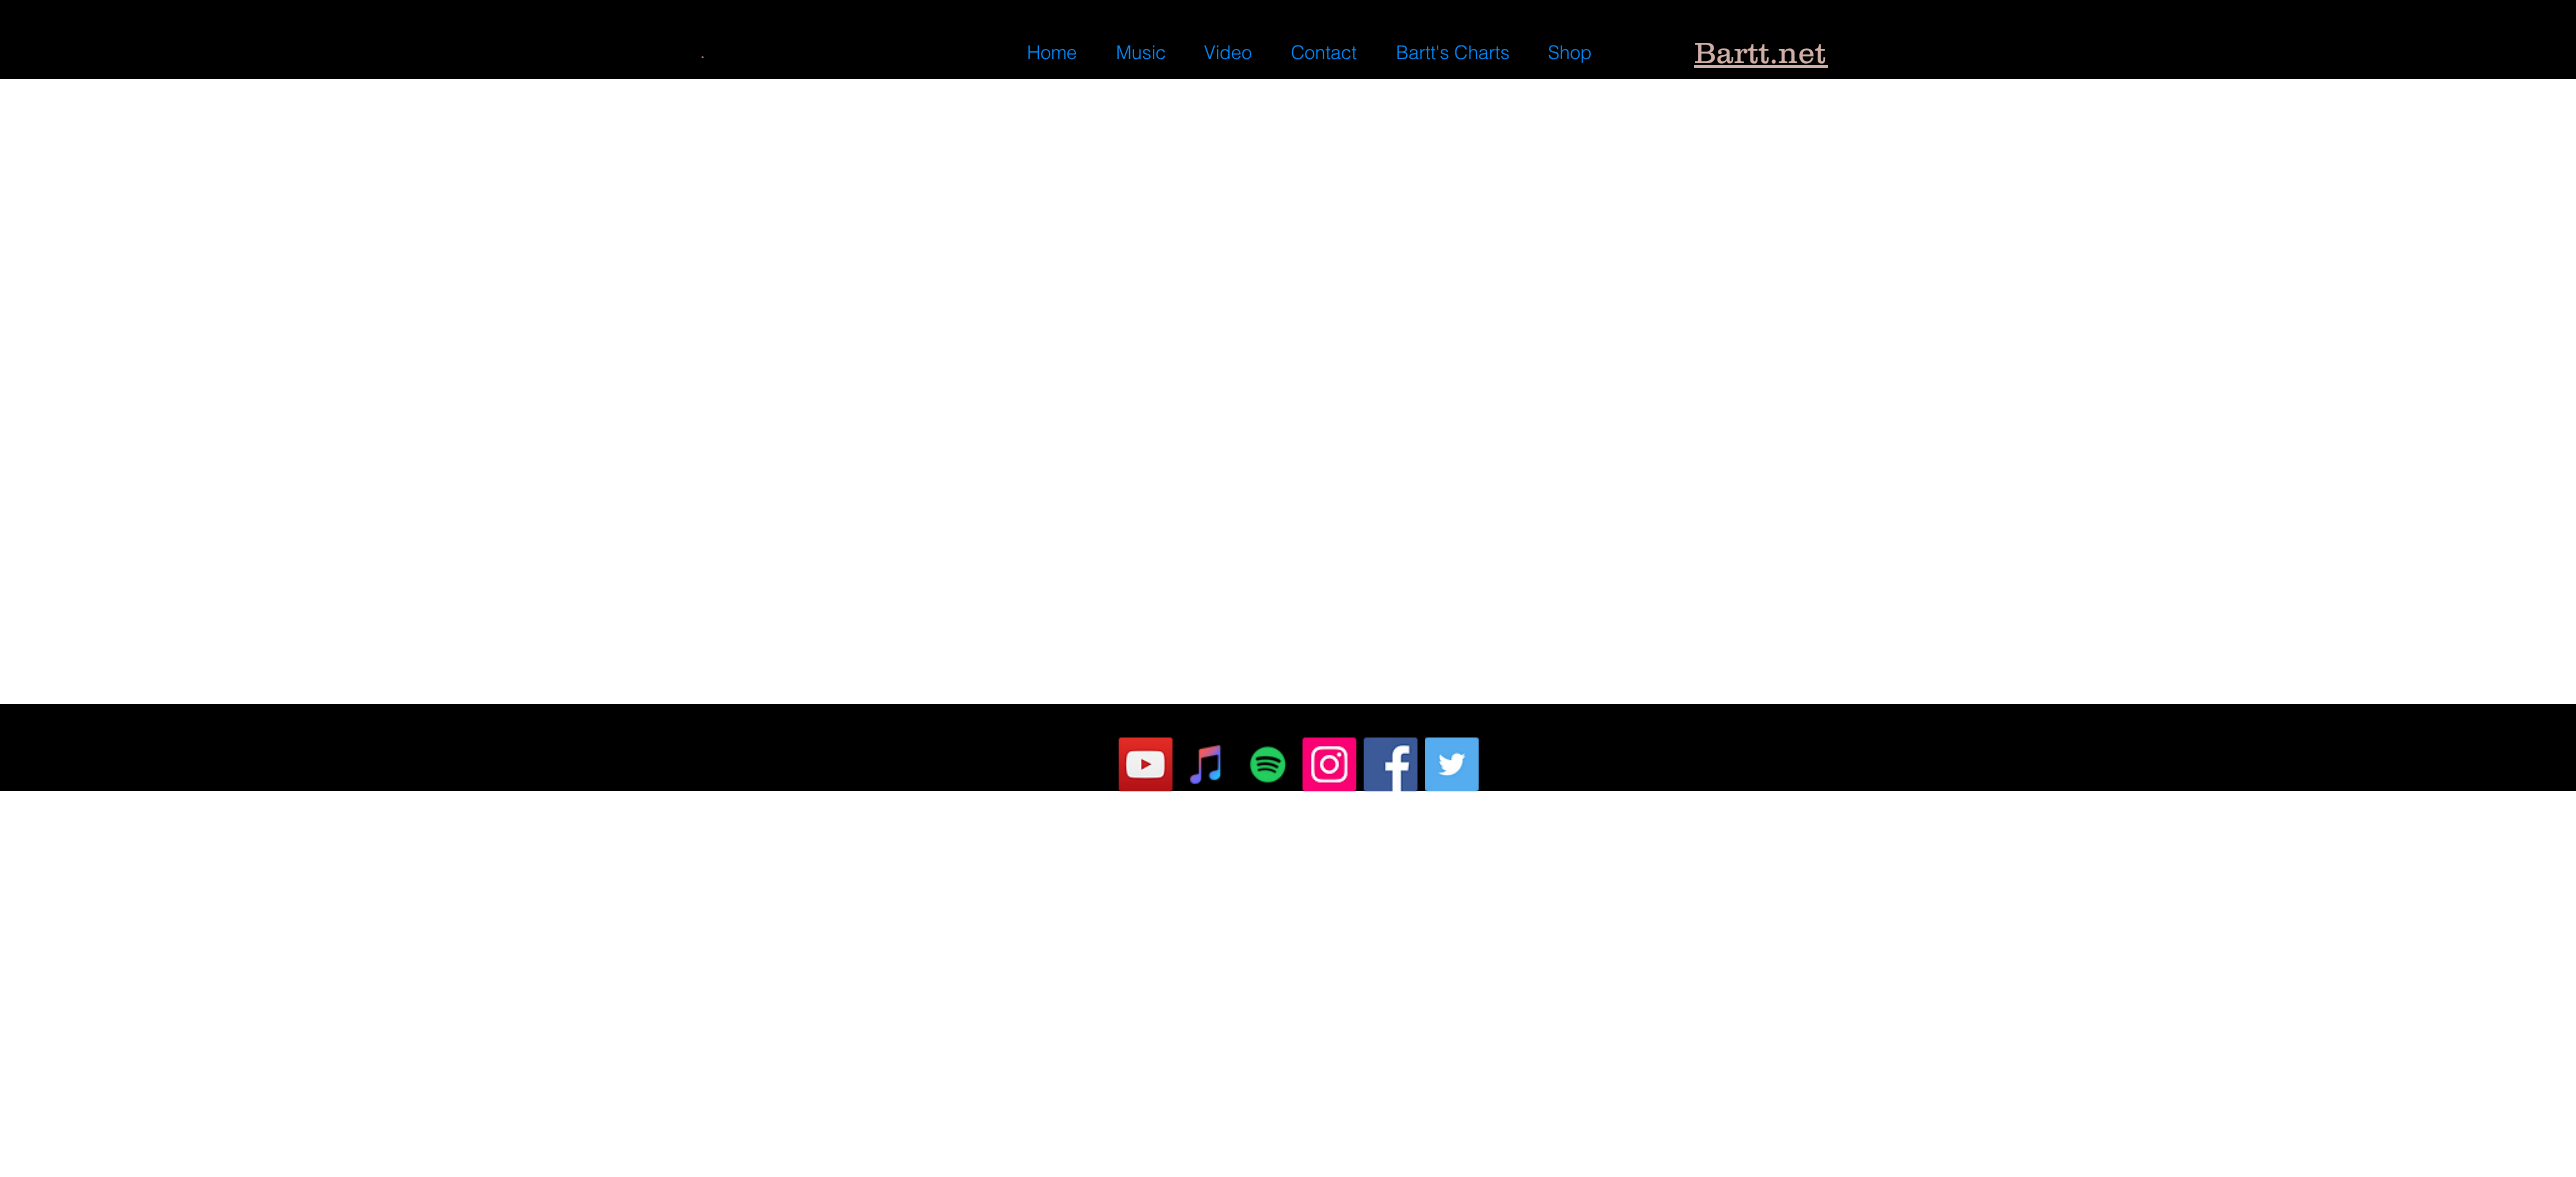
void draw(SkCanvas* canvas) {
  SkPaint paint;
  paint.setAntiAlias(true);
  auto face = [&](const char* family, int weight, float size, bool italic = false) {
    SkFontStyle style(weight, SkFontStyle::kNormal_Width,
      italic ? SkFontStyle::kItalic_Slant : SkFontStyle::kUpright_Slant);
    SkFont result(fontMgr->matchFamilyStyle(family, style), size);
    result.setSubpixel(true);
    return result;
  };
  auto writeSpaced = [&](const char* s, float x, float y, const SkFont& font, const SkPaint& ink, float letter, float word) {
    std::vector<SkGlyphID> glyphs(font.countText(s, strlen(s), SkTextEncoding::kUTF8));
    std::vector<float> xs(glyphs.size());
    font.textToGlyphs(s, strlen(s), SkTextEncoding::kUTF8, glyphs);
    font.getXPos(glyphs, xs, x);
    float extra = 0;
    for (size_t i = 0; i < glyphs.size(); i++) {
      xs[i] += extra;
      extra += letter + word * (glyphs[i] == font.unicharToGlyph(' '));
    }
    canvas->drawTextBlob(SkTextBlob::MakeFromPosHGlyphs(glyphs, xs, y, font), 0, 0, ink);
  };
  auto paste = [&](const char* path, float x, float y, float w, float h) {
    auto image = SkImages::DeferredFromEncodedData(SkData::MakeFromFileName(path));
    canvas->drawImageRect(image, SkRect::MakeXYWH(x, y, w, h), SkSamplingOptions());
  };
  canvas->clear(0xffffffff);
  {
    const struct { float x, y, w, h; SkColor color; } items[] = {
      {0, 0, 2576, 79, 0xff000000},
      {1694, 65, 134, 3, 0xffd0b0a6},
      {0, 704, 2576, 87, 0xff000000},
    };
    for (auto [x, y, w, h, color] : items) {
      paint.setColor(color);
      canvas->drawRect(SkRect::MakeXYWH(x, y, w, h), paint);
    }
  }
  paste("img/1.png", 1118, 737, 55, 55);
  paste("img/2.png", 1189, 744, 33, 41);
  paste("img/3.png", 1249, 746, 38, 37);
  paste("img/4.png", 1302, 737, 55, 55);
  paste("img/5.png", 1363, 737, 55, 55);
  paste("img/6.png", 1425, 737, 54, 55);
  auto f0 = face("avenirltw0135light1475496", 300, 20);
  paint.setColor(0xffb97f6d);
  canvas->drawString(".", 700, 58, f0, paint);
  auto f1 = face("helvetica", 300, 18.75f);
  paint.setColor(0xff008afc);
  {
    const struct { const char* s; float x, y; } items[] = {
      {"Home", 1027, 59},
      {"Music", 1116, 59},
      {"Video", 1204, 59},
      {"Contact", 1291, 59},
      {"Bartt's Charts", 1396, 59},
      {"Shop", 1548, 59},
    };
    for (auto [s, x, y] : items) {
      canvas->drawString(s, x, y, f1, paint);
    }
  }
  auto f2 = face("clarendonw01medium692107", 300, 30);
  paint.setColor(0xffd0b0a6);
  writeSpaced("Bartt.net", 1694, 63, f2, paint, 0.25f, 0);
}
